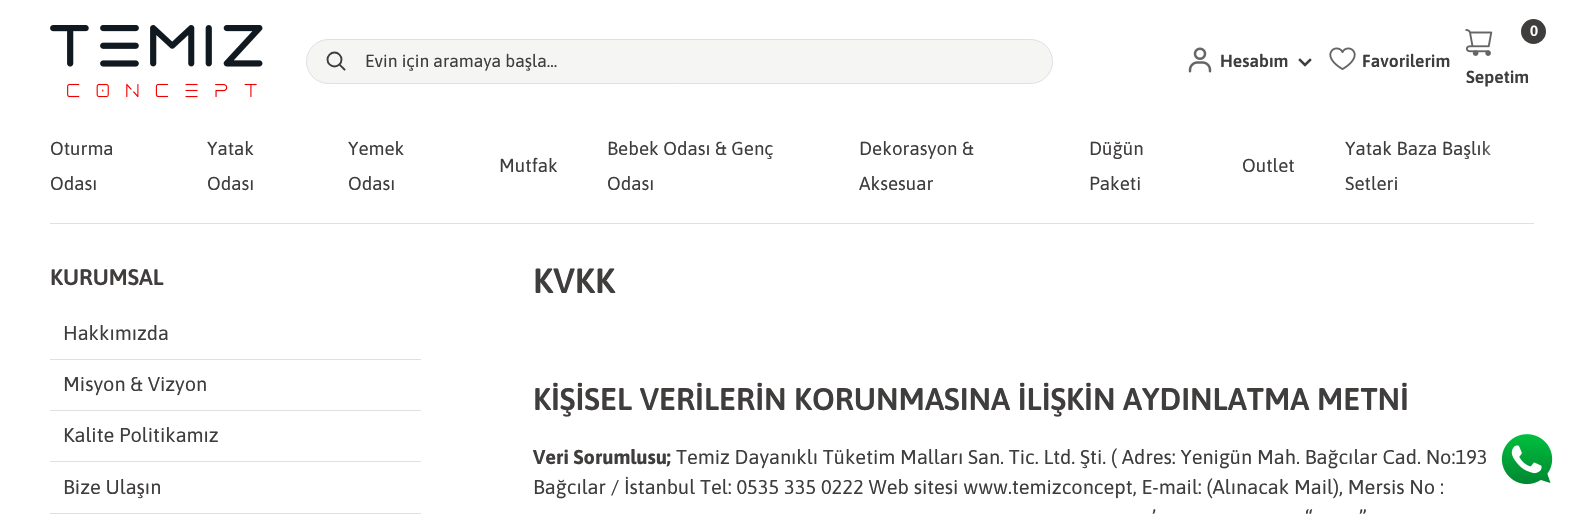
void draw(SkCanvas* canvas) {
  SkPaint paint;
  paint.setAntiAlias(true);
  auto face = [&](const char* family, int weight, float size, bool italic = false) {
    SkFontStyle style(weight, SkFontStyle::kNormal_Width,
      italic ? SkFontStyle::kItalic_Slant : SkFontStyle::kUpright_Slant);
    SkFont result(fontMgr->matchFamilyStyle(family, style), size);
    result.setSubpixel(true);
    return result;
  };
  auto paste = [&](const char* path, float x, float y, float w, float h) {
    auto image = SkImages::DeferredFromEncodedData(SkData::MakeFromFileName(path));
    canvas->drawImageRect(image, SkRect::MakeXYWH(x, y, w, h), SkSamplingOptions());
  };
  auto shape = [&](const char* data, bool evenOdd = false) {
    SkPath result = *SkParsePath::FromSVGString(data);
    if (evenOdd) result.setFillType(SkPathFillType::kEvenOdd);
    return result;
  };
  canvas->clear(0xffffffff);
  paste("img/1.png", 50, 25, 213, 73);
  paint.setColor(0xfff5f6f4);
  canvas->drawRoundRect(SkRect::MakeXYWH(306.5f, 39.5f, 746, 44), 22, 22, paint);
  paint.setStroke(true);
  paint.setStrokeWidth(1);
  paint.setColor(0xffdee0e3);
  canvas->drawRoundRect(SkRect::MakeXYWH(306.5f, 39.5f, 746, 44), 22, 22, paint);
  paint.setStrokeWidth(1.9f);
  paint.setStrokeCap(SkPaint::kSquare_Cap);
  paint.setColor(0xff403d3d);
  canvas->drawPath(shape("M344.5 69.5L339.5 64.5"), paint);
  paint.setStrokeCap(SkPaint::kButt_Cap);
  canvas->drawCircle(334.5f, 59.5f, 7, paint);
  paste("img/2.png", 1188, 47, 24, 26);
  paint.setStrokeWidth(2.5f);
  paint.setStrokeCap(SkPaint::kSquare_Cap);
  canvas->drawPath(shape("M1310 60L1305 65L1300 60"), paint);
  paste("img/3.png", 1329, 47, 27, 23);
  paste("img/4.png", 1465, 29, 28, 27);
  paint.setStroke(false);
  canvas->drawCircle(1533.5f, 31.5f, 12.5f, paint);
  {
    const struct { float x, y, w, h; SkColor color; } items[] = {
      {50, 223, 1484, 1, 0xffdee0e3},
      {50, 359, 371, 1, 0xffdee0e3},
      {50, 410, 371, 1, 0xffdee0e3},
      {50, 461, 371, 1, 0xffdee0e3},
      {50, 513, 371, 1, 0xffdee0e3},
    };
    for (auto [x, y, w, h, color] : items) {
      paint.setColor(color);
      canvas->drawRect(SkRect::MakeXYWH(x, y, w, h), paint);
    }
  }
  paste("img/5.png", 1501, 434, 52, 51);
  auto f0 = face("Asap", 400, 17.5f);
  paint.setColor(0xff403d3d);
  canvas->drawString("Evin için aramaya başla...", 365, 67, f0, paint);
  auto f1 = face("Asap", 600, 17.5f);
  canvas->drawString("Hesabım", 1220, 67, f1, paint);
  canvas->drawString("Favorilerim", 1362, 67, f1, paint);
  auto f2 = face("Asap", 600, 15);
  paint.setColor(0xffffffff);
  canvas->drawString("0", 1530, 36, f2, paint);
  paint.setColor(0xff403d3d);
  canvas->drawString("Sepetim", 1466, 83, f1, paint);
  auto f3 = face("Asap", 400, 18.75f);
  {
    const struct { const char* s; float x, y; } items[] = {
      {"Oturma", 50, 155},
      {"Odası", 50, 190},
      {"Yatak", 207, 155},
      {"Odası", 207, 190},
      {"Yemek", 348, 155},
      {"Odası", 348, 190},
      {"Mutfak", 499, 172},
      {"Bebek Odası & Genç", 607, 155},
      {"Odası", 607, 190},
      {"Dekorasyon &", 859, 155},
      {"Aksesuar", 859, 190},
      {"Düğün", 1089, 155},
      {"Paketi", 1089, 190},
      {"Outlet", 1242, 172},
      {"Yatak Baza Başlık", 1345, 155},
      {"Setleri", 1345, 190},
    };
    for (auto [s, x, y] : items) {
      canvas->drawString(s, x, y, f3, paint);
    }
  }
  {
    const SkColor colors[] = {0x1affffff, 0x99ffffff, 0xffffffff};
    const float stops[] = {0, 0.35f, 1};
    const SkPoint ends[] = {{1484, 166}, {1534, 166}};
    paint.setShader(SkGradientShader::MakeLinear(ends, colors, stops, 3, SkTileMode::kClamp));
    paint.setAlpha(255);
  }
  canvas->drawRect(SkRect::MakeXYWH(1484, 141, 6, 14), paint);
  auto f4 = face("Asap", 600, 22.5f);
  paint.setShader(nullptr);
  paint.setColor(0xff403d3d);
  canvas->drawString("KURUMSAL", 50, 285, f4, paint);
  auto f5 = face("Asap", 400, 20);
  {
    const struct { const char* s; float x, y; } items[] = {
      {"Hakkımızda", 63, 340},
      {"Misyon & Vizyon", 63, 391},
      {"Kalite Politikamız", 63, 442},
      {"Bize Ulaşın", 63, 494},
    };
    for (auto [s, x, y] : items) {
      canvas->drawString(s, x, y, f5, paint);
    }
  }
  auto f6 = face("Asap", 600, 35);
  canvas->drawString("KVKK", 533, 293, f6, paint);
  auto f7 = face("Asap", 600, 31.25f);
  canvas->drawString("KİŞİSEL VERİLERİN KORUNMASINA İLİŞKİN AYDINLATMA METNİ", 533, 410, f7, paint);
  auto f8 = face("Asap", 700, 20);
  canvas->drawString("Veri Sorumlusu;", 533, 464, f8, paint);
  {
    const struct { const char* s; float x, y; } items[] = {
      {"Temiz Dayanıklı Tüketim Malları San. Tic. Ltd. Şti. ( Adres: Yenigün Mah. Bağcılar Cad. No:193", 676, 464},
      {"Bağcılar / İstanbul Tel: 0535 335 0222 Web sitesi www.temizconcept, E-mail: (Alınacak Mail), Mersis No :", 533, 494},
      {"’", 1152, 524},
      {"“", 1305, 524},
      {"”", 1359, 524},
    };
    for (auto [s, x, y] : items) {
      canvas->drawString(s, x, y, f5, paint);
    }
  }
}
